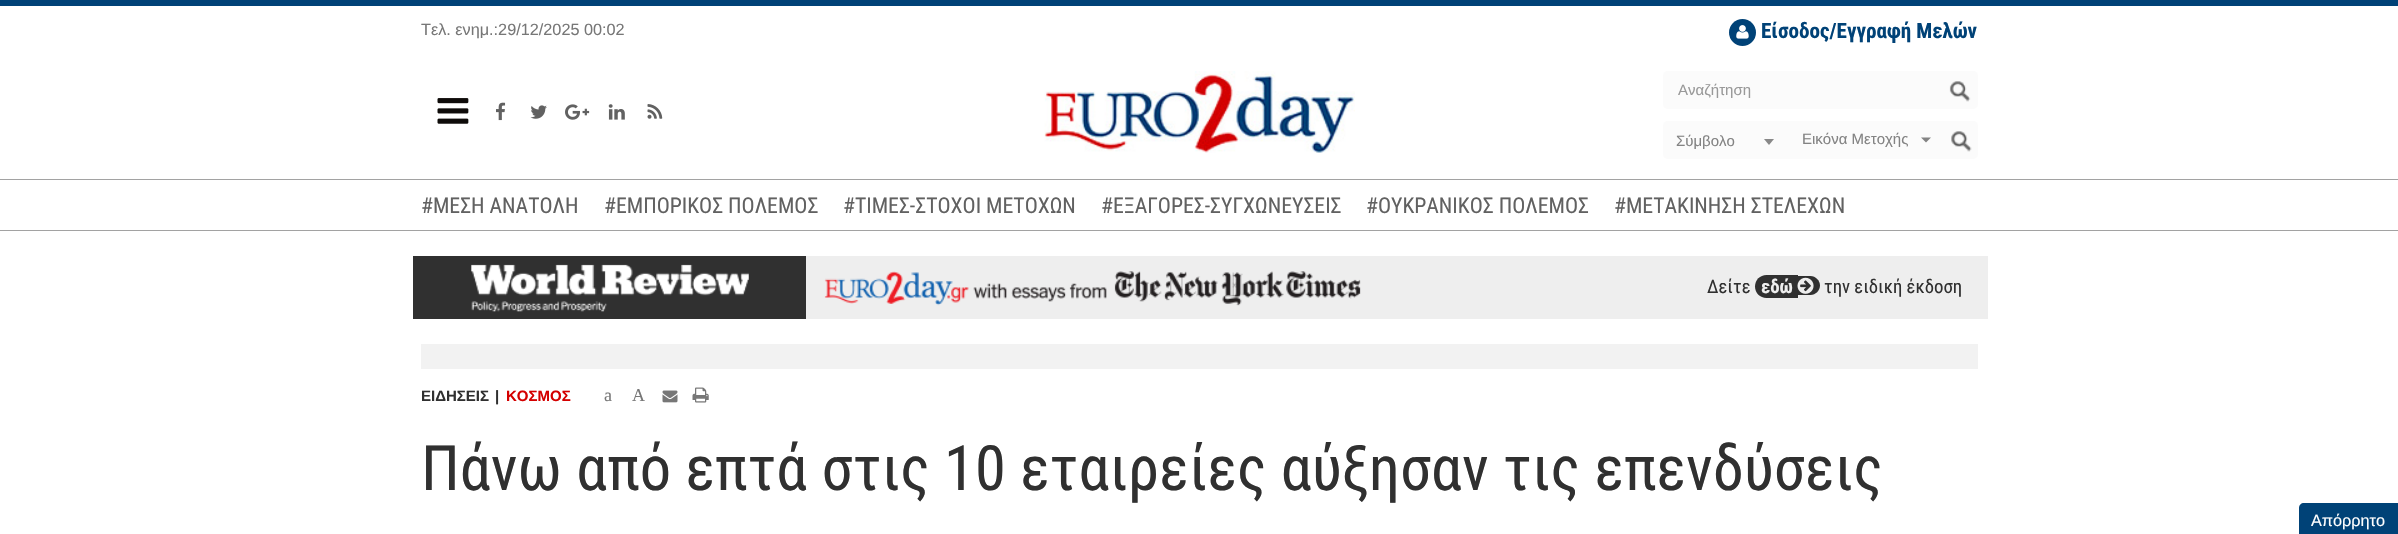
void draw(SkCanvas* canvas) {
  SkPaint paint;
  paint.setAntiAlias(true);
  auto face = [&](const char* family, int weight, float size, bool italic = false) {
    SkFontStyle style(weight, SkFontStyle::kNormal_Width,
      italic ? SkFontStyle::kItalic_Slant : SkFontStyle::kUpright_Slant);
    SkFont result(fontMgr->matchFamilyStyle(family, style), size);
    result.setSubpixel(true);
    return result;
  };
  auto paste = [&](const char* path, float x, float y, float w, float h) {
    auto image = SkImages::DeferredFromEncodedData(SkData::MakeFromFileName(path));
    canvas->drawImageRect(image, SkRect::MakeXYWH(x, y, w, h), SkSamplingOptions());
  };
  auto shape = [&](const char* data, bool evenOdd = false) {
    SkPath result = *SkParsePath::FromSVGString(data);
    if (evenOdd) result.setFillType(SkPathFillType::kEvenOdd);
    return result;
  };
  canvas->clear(0xffffffff);
  paint.setColor(0xff004277);
  canvas->drawRect(SkRect::MakeXYWH(0, 0, 2398, 6), paint);
  canvas->drawCircle(1742.5f, 32.5f, 13.5f, paint);
  paste("img/1.png", 1736, 25, 13, 14);
  paste("img/2.png", 437, 98, 32, 26);
  paste("img/3.png", 496, 102, 10, 19);
  paste("img/4.png", 530, 105, 17, 14);
  paste("img/5.png", 565, 104, 25, 16);
  paste("img/6.png", 608, 104, 17, 16);
  paste("img/7.png", 647, 104, 16, 15);
  paste("img/8.png", 1044, 71, 311, 82);
  paint.setColor(0xfffbfbfb);
  canvas->drawRoundRect(SkRect::MakeXYWH(1663, 71, 315, 38), 5, 5, paint);
  paste("img/9.png", 1949, 81, 22, 21);
  canvas->drawRoundRect(SkRect::MakeXYWH(1663, 121, 315, 38), 5, 5, paint);
  paint.setColor(0xff888888);
  canvas->drawPath(shape("M1764 139H1774L1769 145Z"), paint);
  paint.setColor(0xff838383);
  canvas->drawPath(shape("M1921 137.5H1931L1926 142.5Z"), paint);
  paste("img/10.png", 1951, 131, 21, 21);
  {
    const struct { float x, y, w, h; SkColor color; } items[] = {
      {0, 179, 2398, 1, 0xffa2a2a2},
      {0, 230, 2398, 1, 0xffa2a2a2},
      {806, 256, 1182, 63, 0xffeeeeee},
      {413, 256, 393, 63, 0xff303030},
    };
    for (auto [x, y, w, h, color] : items) {
      paint.setColor(color);
      canvas->drawRect(SkRect::MakeXYWH(x, y, w, h), paint);
    }
  }
  paste("img/11.png", 471, 264, 278, 48);
  paste("img/12.png", 824, 271, 537, 35);
  canvas->drawPath(shape("M1766.5 275H1798V298H1766.5C1760 298 1755 293 1755 286.5C1755 280 1760 275 1766.5 275Z"), paint);
  canvas->drawPath(shape("M1798 276H1810.5C1815.5 276 1820 280.5 1820 285.5C1820 290.5 1815.5 295 1810.5 295H1798Z"), paint);
  paste("img/13.png", 1797, 277, 17, 17);
  paint.setColor(0xfff2f2f2);
  canvas->drawRect(SkRect::MakeXYWH(421, 344, 1557, 25), paint);
  paste("img/14.png", 662, 390, 16, 13);
  paste("img/15.png", 692, 387, 17, 16);
  paint.setColor(0xff004277);
  canvas->drawPath(shape("M2304 503H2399V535H2299V508C2299 505 2301 503 2304 503Z"), paint);
  auto f0 = face("Liberation Sans", 400, 16.25f);
  paint.setColor(0xff777777);
  canvas->drawString("Τελ. ενημ.:29/12/2025 00:02", 421, 35, f0, paint);
  auto f1 = face("Roboto Condensed", 700, 21.1f);
  paint.setColor(0xff004277);
  canvas->drawString("Είσοδος/Εγγραφή Μελών", 1761, 38, f1, paint);
  auto f2 = face("Liberation Sans", 400, 15);
  paint.setColor(0xff999999);
  canvas->drawString("Αναζήτηση", 1678, 95, f2, paint);
  paint.setColor(0xff838383);
  canvas->drawString("Σύμβολο", 1676, 146, f2, paint);
  canvas->drawString("Εικόνα Μετοχής", 1802, 144, f2, paint);
  auto f3 = face("Roboto Condensed", 400, 21.75f);
  paint.setColor(0xff616161);
  {
    const struct { const char* s; float x, y; } items[] = {
      {"#ΜΕΣΗ ΑΝΑΤΟΛΗ", 421, 213},
      {"#ΕΜΠΟΡΙΚΟΣ ΠΟΛΕΜΟΣ", 604, 213},
      {"#ΤΙΜΕΣ-ΣΤΟΧΟΙ ΜΕΤΟΧΩΝ", 843, 213},
      {"#ΕΞΑΓΟΡΕΣ-ΣΥΓΧΩΝΕΥΣΕΙΣ", 1101, 213},
      {"#ΟΥΚΡΑΝΙΚΟΣ ΠΟΛΕΜΟΣ", 1366, 213},
      {"#ΜΕΤΑΚΙΝΗΣΗ ΣΤΕΛΕΧΩΝ", 1614, 213},
    };
    for (auto [s, x, y] : items) {
      canvas->drawString(s, x, y, f3, paint);
    }
  }
  auto f4 = face("Roboto Condensed", 400, 18.75f);
  paint.setColor(0xff303030);
  canvas->drawString("Δείτε", 1707, 293, f4, paint);
  auto f5 = face("Roboto Condensed", 700, 18.75f);
  paint.setColor(0xffeeeeee);
  canvas->drawString("εδώ", 1761, 293, f5, paint);
  paint.setColor(0xff303030);
  canvas->drawString("την ειδική έκδοση", 1824, 293, f4, paint);
  auto f6 = face("Liberation Sans", 700, 15);
  canvas->drawString("ΕΙΔΗΣΕΙΣ", 421, 401, f6, paint);
  canvas->drawString("|", 495, 401, f6, paint);
  paint.setColor(0xffd40000);
  canvas->drawString("ΚΟΣΜΟΣ", 506, 401, f6, paint);
  auto f7 = face("Liberation Serif", 400, 18);
  paint.setColor(0xff777777);
  canvas->drawString("a", 604, 401, f7, paint);
  canvas->drawString("A", 632, 401, f7, paint);
  auto f8 = face("Roboto Condensed", 400, 62.5f);
  paint.setColor(0xff303030);
  canvas->drawString("Πάνω από επτά στις 10 εταιρείες αύξησαν τις επενδύσεις", 421, 490, f8, paint);
  paint.setColor(0xffffffff);
  canvas->drawString("Απόρρητο", 2311, 526, f0, paint);
}
